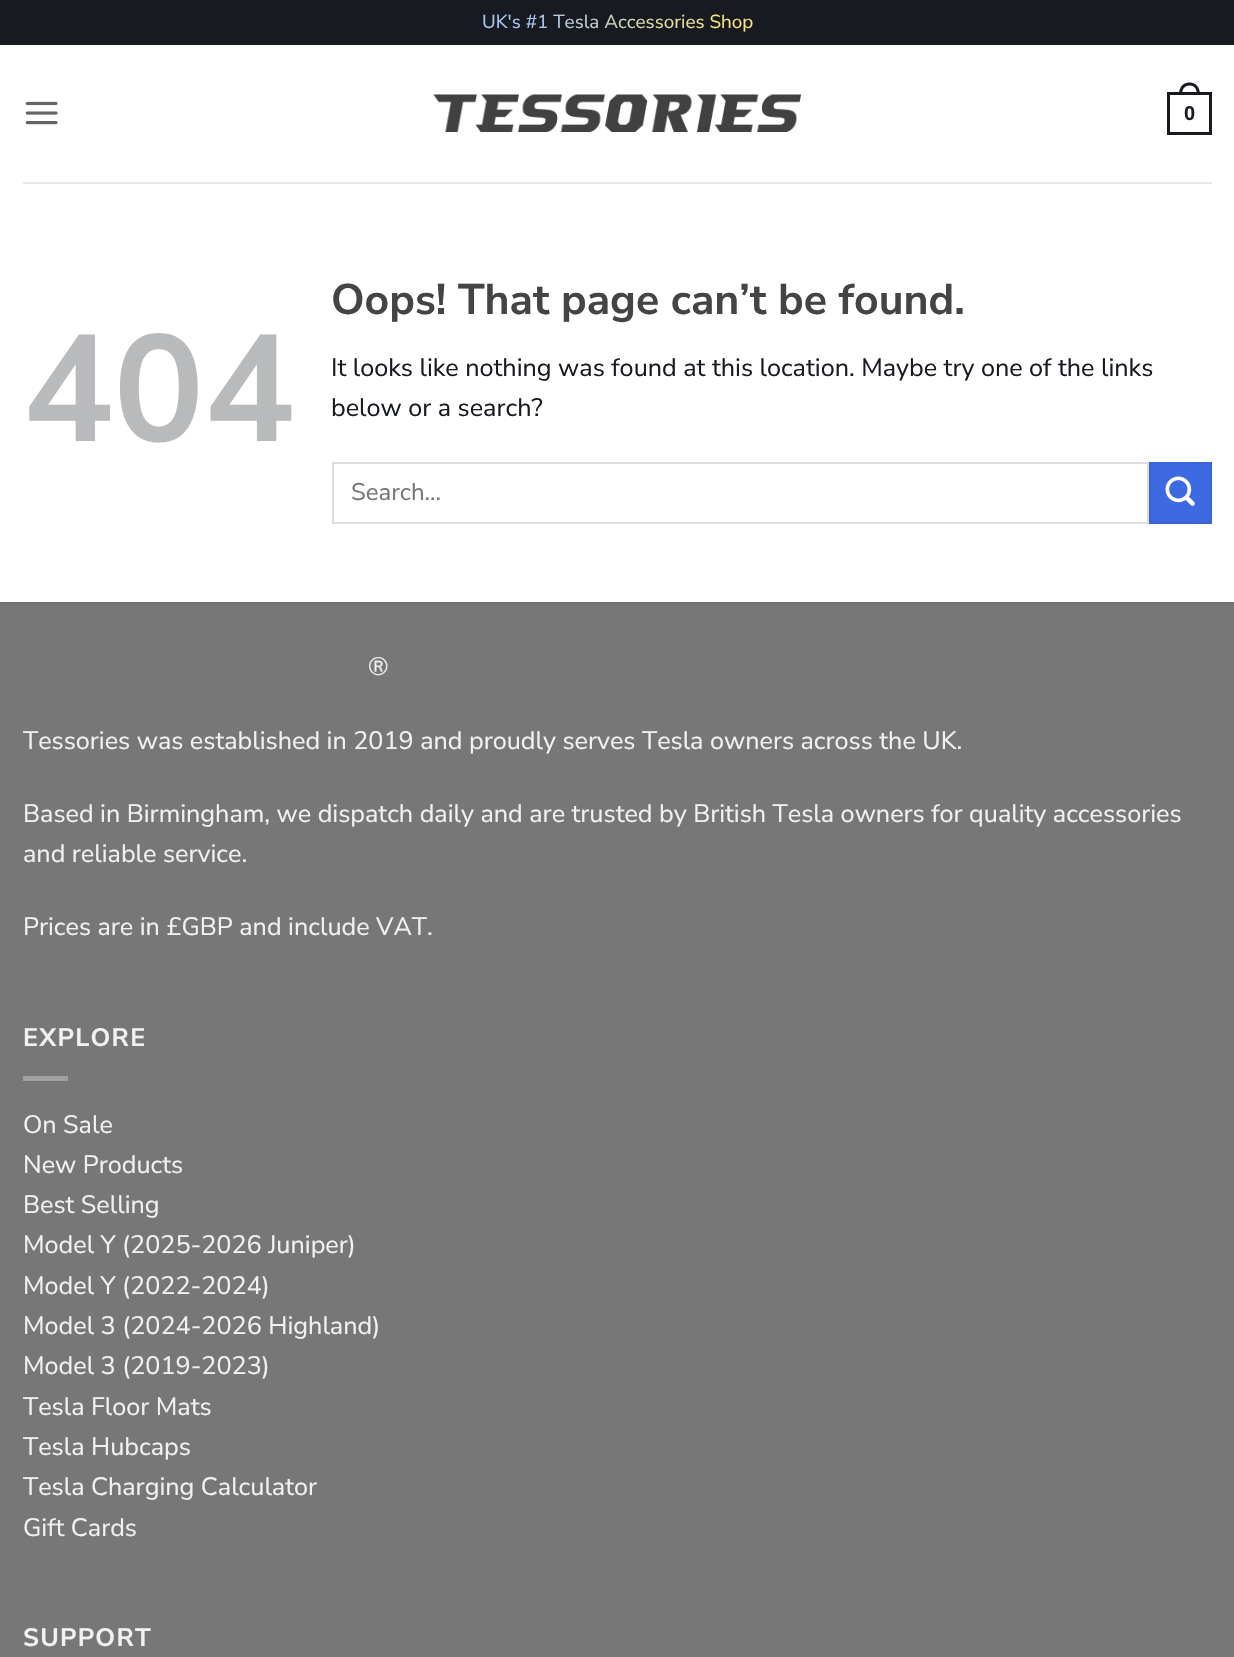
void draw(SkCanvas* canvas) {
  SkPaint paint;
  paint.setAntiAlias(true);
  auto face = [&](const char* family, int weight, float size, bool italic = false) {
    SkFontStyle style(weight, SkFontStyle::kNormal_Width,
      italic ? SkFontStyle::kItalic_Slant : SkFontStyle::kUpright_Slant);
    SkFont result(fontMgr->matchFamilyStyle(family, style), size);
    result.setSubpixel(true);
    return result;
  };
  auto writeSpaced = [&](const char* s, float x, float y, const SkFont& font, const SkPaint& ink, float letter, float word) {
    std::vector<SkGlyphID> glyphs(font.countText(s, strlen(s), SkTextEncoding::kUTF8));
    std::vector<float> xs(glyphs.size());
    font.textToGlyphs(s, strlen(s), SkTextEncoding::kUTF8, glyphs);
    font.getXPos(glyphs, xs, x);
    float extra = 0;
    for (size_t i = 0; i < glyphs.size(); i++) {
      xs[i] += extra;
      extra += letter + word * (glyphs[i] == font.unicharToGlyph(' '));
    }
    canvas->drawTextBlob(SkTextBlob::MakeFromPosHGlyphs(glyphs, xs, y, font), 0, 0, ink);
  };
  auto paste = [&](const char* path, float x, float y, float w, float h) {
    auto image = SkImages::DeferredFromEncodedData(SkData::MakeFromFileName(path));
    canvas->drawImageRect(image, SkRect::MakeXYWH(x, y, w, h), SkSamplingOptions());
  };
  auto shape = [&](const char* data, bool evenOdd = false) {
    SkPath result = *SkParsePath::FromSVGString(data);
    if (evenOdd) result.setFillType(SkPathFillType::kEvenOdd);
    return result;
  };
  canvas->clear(0xffffffff);
  paint.setColor(0xff171a20);
  canvas->drawRect(SkRect::MakeXYWH(0, 0, 1234, 45), paint);
  paste("img/1.png", 25, 101, 33, 24);
  paste("img/2.png", 433, 94, 368, 38);
  paint.setStroke(true);
  paint.setStrokeWidth(3);
  canvas->drawRect(SkRect::MakeXYWH(1168.5f, 93.5f, 42, 40), paint);
  paint.setStroke(false);
  canvas->drawPath(shape("M1189.5 82.5C1196.5 82.5 1200 88 1200 94.5H1179C1179 88 1182.5 82.5 1189.5 82.5ZM1189.5 85.5C1195 85.5 1197 90 1197 94.5H1182C1182 90 1184 85.5 1189.5 85.5Z", true), paint);
  paint.setColor(0xffe8e8e9);
  canvas->drawRect(SkRect::MakeXYWH(23, 182, 1189, 2), paint);
  paint.setStroke(true);
  paint.setStrokeWidth(2);
  paint.setColor(0xffdddddd);
  canvas->drawRect(SkRect::MakeXYWH(333, 463, 815, 60), paint);
  paint.setStroke(false);
  paint.setColor(0xff3e6ae1);
  canvas->drawRect(SkRect::MakeXYWH(1150, 463, 61, 60), paint);
  paint.setStroke(true);
  paint.setColor(0xff3b65d6);
  canvas->drawRect(SkRect::MakeXYWH(1150, 463, 61, 60), paint);
  paste("img/3.png", 1165, 476, 30, 30);
  paint.setStroke(false);
  {
    const struct { float x, y, w, h; SkColor color; } items[] = {
      {0, 604, 1234, 1053, 0xff777777},
      {0, 602, 1234, 2, 0xff717171},
      {23, 1076, 45, 5, 0xffa0a0a0},
    };
    for (auto [x, y, w, h, color] : items) {
      paint.setColor(color);
      canvas->drawRect(SkRect::MakeXYWH(x, y, w, h), paint);
    }
  }
  auto f0 = face("Nunito Sans", 400, 18.9f);
  {
    const SkColor colors[] = {0xffaac7f3, 0xfff9e57e};
    const float stops[] = {0.17f, 0.88f};
    const SkPoint ends[] = {{482, 22}, {753, 22}};
    paint.setShader(SkGradientShader::MakeLinear(ends, colors, stops, 2, SkTileMode::kClamp));
    paint.setAlpha(255);
  }
  canvas->drawString("UK's #1 Tesla Accessories Shop", 482, 28, f0, paint);
  auto f1 = face("Liberation Sans", 700, 20);
  paint.setShader(nullptr);
  paint.setColor(0xff171a20);
  canvas->drawString("0", 1184, 120, f1, paint);
  auto f2 = face("Nunito Sans", 700, 151);
  paint.setColor(0xffb9babc);
  canvas->drawString("404", 23, 441, f2, paint);
  auto f3 = face("Nunito Sans", 700, 42.8f);
  paint.setColor(0xff444444);
  canvas->drawString("Oops! That page can’t be found.", 331, 314, f3, paint);
  auto f4 = face("Nunito Sans", 400, 25.2f);
  paint.setColor(0xff171a20);
  canvas->drawString("It looks like nothing was found at this location. Maybe try one of the links", 331, 376, f4, paint);
  canvas->drawString("below or a search?", 331, 416, f4, paint);
  auto f5 = face("Nunito Sans", 400, 24);
  paint.setColor(0xff757575);
  canvas->drawString("Search…", 351, 500, f5, paint);
  paint.setColor(0xfff1f1f1);
  {
    const struct { const char* s; float x, y; } items[] = {
      {"®", 368, 675},
      {"Tessories was established in 2019 and proudly serves Tesla owners across the UK.", 23, 749},
      {"Based in Birmingham, we dispatch daily and are trusted by British Tesla owners for quality accessories", 23, 822},
      {"and reliable service.", 23, 862},
      {"Prices are in £GBP and include VAT.", 23, 935},
    };
    for (auto [s, x, y] : items) {
      canvas->drawString(s, x, y, f4, paint);
    }
  }
  auto f6 = face("Nunito Sans", 700, 25.2f);
  writeSpaced("EXPLORE", 23, 1046, f6, paint, 1.25f, 0);
  {
    const struct { const char* s; float x, y; } items[] = {
      {"On Sale", 23, 1133},
      {"New Products", 23, 1173},
      {"Best Selling", 23, 1213},
      {"Model Y (2025-2026 Juniper)", 23, 1253},
      {"Model Y (2022-2024)", 23, 1294},
      {"Model 3 (2024-2026 Highland)", 23, 1334},
      {"Model 3 (2019-2023)", 23, 1374},
      {"Tesla Floor Mats", 23, 1415},
      {"Tesla Hubcaps", 23, 1455},
      {"Tesla Charging Calculator", 23, 1495},
      {"Gift Cards", 23, 1536},
    };
    for (auto [s, x, y] : items) {
      canvas->drawString(s, x, y, f4, paint);
    }
  }
  writeSpaced("SUPPORT", 23, 1646, f6, paint, 1.25f, 0);
}
